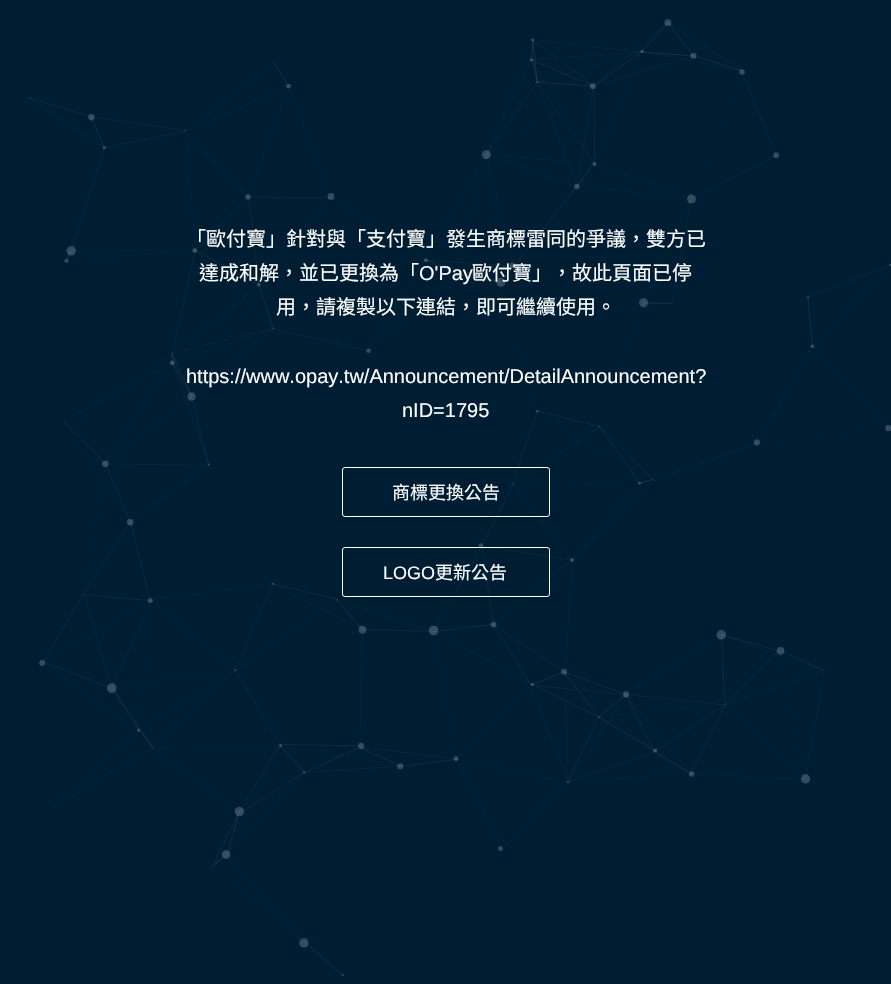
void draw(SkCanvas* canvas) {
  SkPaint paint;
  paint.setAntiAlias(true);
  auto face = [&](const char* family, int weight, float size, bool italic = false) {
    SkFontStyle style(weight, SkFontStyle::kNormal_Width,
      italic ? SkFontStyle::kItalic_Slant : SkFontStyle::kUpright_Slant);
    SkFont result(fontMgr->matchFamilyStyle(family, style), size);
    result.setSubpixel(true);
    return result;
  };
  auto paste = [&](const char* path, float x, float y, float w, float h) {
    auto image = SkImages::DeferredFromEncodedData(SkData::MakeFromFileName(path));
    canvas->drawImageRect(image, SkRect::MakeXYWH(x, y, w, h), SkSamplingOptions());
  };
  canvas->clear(0xff001e33);
  paste("img/1.png", 27, 19, 864, 958);
  paint.setStroke(true);
  paint.setStrokeWidth(1);
  paint.setColor(0xffffffff);
  canvas->drawRoundRect(SkRect::MakeXYWH(342.5f, 467.5f, 207, 49), 2.5f, 2.5f, paint);
  canvas->drawRoundRect(SkRect::MakeXYWH(342.5f, 547.5f, 207, 49), 2.5f, 2.5f, paint);
  auto f0 = face("Noto Sans CJK TC", 400, 20);
  paint.setStroke(false);
  canvas->drawString("「歐付寶」針對與「支付寶」發生商標雷同的爭議，雙方已", 186, 246, f0, paint);
  canvas->drawString("達成和解，並已更換為「", 199, 280, f0, paint);
  auto f1 = face("Liberation Sans", 400, 20);
  canvas->drawString("O'Pay", 419, 280, f1, paint);
  canvas->drawString("歐付寶」，故此頁面已停", 472, 280, f0, paint);
  canvas->drawString("用，請複製以下連結，即可繼續使用。", 276, 314, f0, paint);
  canvas->drawString("https://www.opay.tw/Announcement/DetailAnnouncement?", 186, 383, f1, paint);
  canvas->drawString("nID=1795", 402, 417, f1, paint);
  auto f2 = face("Noto Sans CJK TC", 400, 18);
  canvas->drawString("商標更換公告", 392, 499, f2, paint);
  auto f3 = face("Liberation Sans", 400, 18);
  canvas->drawString("LOGO", 383, 579, f3, paint);
  canvas->drawString("更新公告", 435, 579, f2, paint);
}
